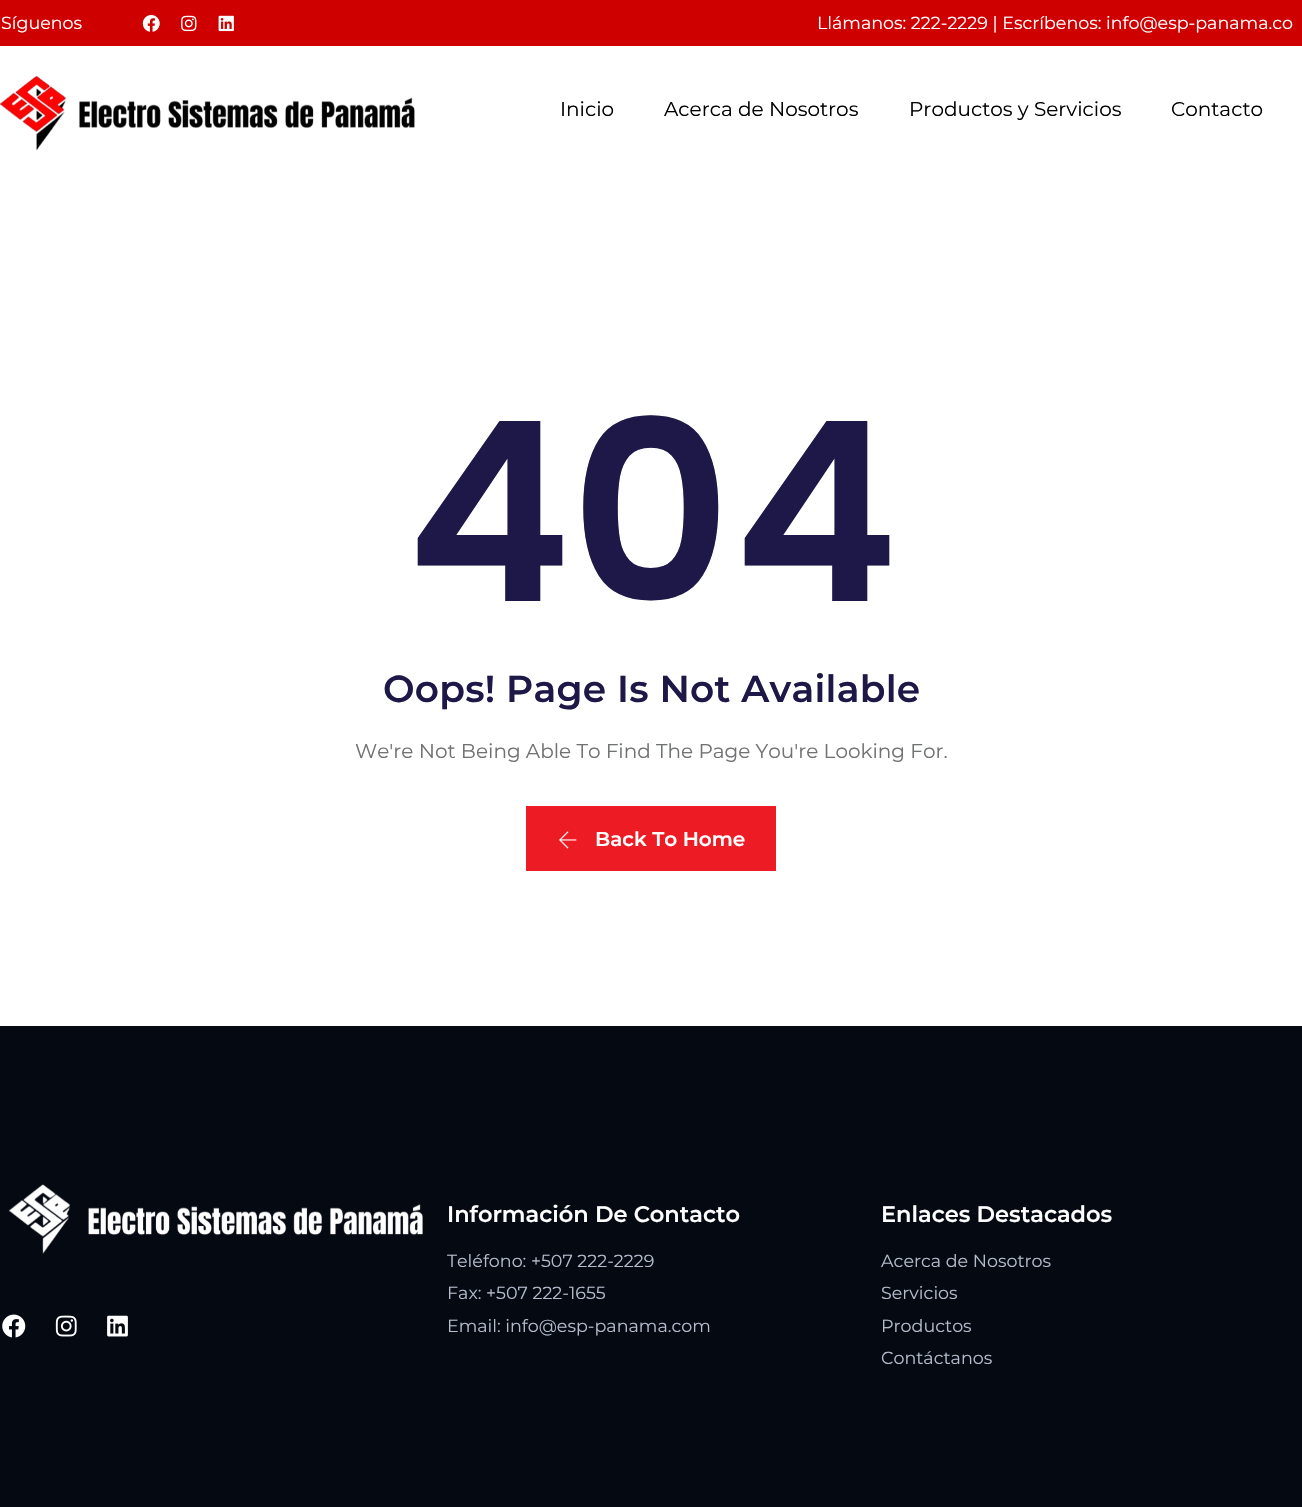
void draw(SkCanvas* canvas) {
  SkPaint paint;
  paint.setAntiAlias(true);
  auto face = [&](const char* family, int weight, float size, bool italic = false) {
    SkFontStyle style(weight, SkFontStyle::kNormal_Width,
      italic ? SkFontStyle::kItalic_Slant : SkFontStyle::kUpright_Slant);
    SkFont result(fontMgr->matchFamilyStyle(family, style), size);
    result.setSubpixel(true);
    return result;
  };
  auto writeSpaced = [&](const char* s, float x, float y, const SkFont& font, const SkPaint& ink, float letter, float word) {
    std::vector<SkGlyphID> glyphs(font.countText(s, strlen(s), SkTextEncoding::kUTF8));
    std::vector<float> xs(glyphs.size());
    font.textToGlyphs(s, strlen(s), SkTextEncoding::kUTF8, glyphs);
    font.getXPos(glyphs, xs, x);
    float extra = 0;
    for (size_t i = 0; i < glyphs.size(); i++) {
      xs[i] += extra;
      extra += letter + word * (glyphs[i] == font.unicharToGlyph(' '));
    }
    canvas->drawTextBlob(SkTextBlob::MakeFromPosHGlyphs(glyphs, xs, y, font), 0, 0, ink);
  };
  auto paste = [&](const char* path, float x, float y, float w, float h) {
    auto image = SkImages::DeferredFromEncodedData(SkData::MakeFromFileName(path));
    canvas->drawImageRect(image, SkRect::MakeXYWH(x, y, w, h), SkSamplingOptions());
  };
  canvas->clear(0xffffffff);
  paint.setColor(0xffce0000);
  canvas->drawRect(SkRect::MakeXYWH(0, 0, 1302, 46), paint);
  paste("img/1.png", 142, 15, 18, 17);
  paste("img/2.png", 181, 15, 16, 17);
  paste("img/3.png", 218, 15, 16, 17);
  paste("img/4.png", 0, 75, 415, 76);
  paint.setColor(0xffed1b24);
  canvas->drawRect(SkRect::MakeXYWH(526, 806, 250, 65), paint);
  paste("img/5.png", 559, 831, 18, 18);
  paint.setColor(0xff050912);
  canvas->drawRect(SkRect::MakeXYWH(0, 1026, 1302, 481), paint);
  paste("img/6.png", 8, 1184, 415, 70);
  paste("img/7.png", 2, 1314, 24, 24);
  paste("img/8.png", 55, 1315, 22, 22);
  paste("img/9.png", 107, 1315, 21, 22);
  auto f0 = face("Montserrat", 400, 17.5f);
  paint.setColor(0xffffffff);
  canvas->drawString("Síguenos", 1, 29, f0, paint);
  canvas->drawString("Llámanos: 222-2229 | Escríbenos: info@esp-panama.co", 817, 29, f0, paint);
  auto f1 = face("Montserrat", 400, 20);
  paint.setColor(0xff000000);
  {
    const struct { const char* s; float x, y; } items[] = {
      {"Inicio", 560, 116},
      {"Acerca de Nosotros", 664, 116},
      {"Productos y Servicios", 909, 116},
      {"Contacto", 1171, 116},
    };
    for (auto [s, x, y] : items) {
      canvas->drawString(s, x, y, f1, paint);
    }
  }
  auto f2 = face("Poppins", 600, 250);
  paint.setColor(0xff1d1847);
  {
    const struct { const char* s; float x, y; } items[] = {
      {"4", 406, 601},
      {"0", 570, 601},
      {"4", 733, 601},
    };
    for (auto [s, x, y] : items) {
      writeSpaced(s, x, y, f2, paint, 2, 0);
    }
  }
  auto f3 = face("Montserrat", 600, 37.5f);
  writeSpaced("Oops! Page Is Not Available", 383, 702, f3, paint, 0.25f, 0);
  paint.setColor(0xff707173);
  canvas->drawString("We're Not Being Able To Find The Page You're Looking For.", 355, 758, f1, paint);
  auto f4 = face("Montserrat", 600, 20);
  paint.setColor(0xffffffff);
  canvas->drawString("Back To Home", 595, 846, f4, paint);
  auto f5 = face("Montserrat", 600, 22.5f);
  canvas->drawString("Información De Contacto", 447, 1222, f5, paint);
  paint.setColor(0xffb4bbcb);
  {
    const struct { const char* s; float x, y; } items[] = {
      {"Teléfono: +507 222-2229", 447, 1267},
      {"Fax: +507 222-1655", 447, 1299},
      {"Email: info@esp-panama.com", 447, 1332},
    };
    for (auto [s, x, y] : items) {
      canvas->drawString(s, x, y, f0, paint);
    }
  }
  paint.setColor(0xffffffff);
  canvas->drawString("Enlaces Destacados", 881, 1222, f5, paint);
  paint.setColor(0xffb4bbcb);
  {
    const struct { const char* s; float x, y; } items[] = {
      {"Acerca de Nosotros", 881, 1267},
      {"Servicios", 881, 1299},
      {"Productos", 881, 1332},
      {"Contáctanos", 881, 1364},
    };
    for (auto [s, x, y] : items) {
      canvas->drawString(s, x, y, f0, paint);
    }
  }
}
